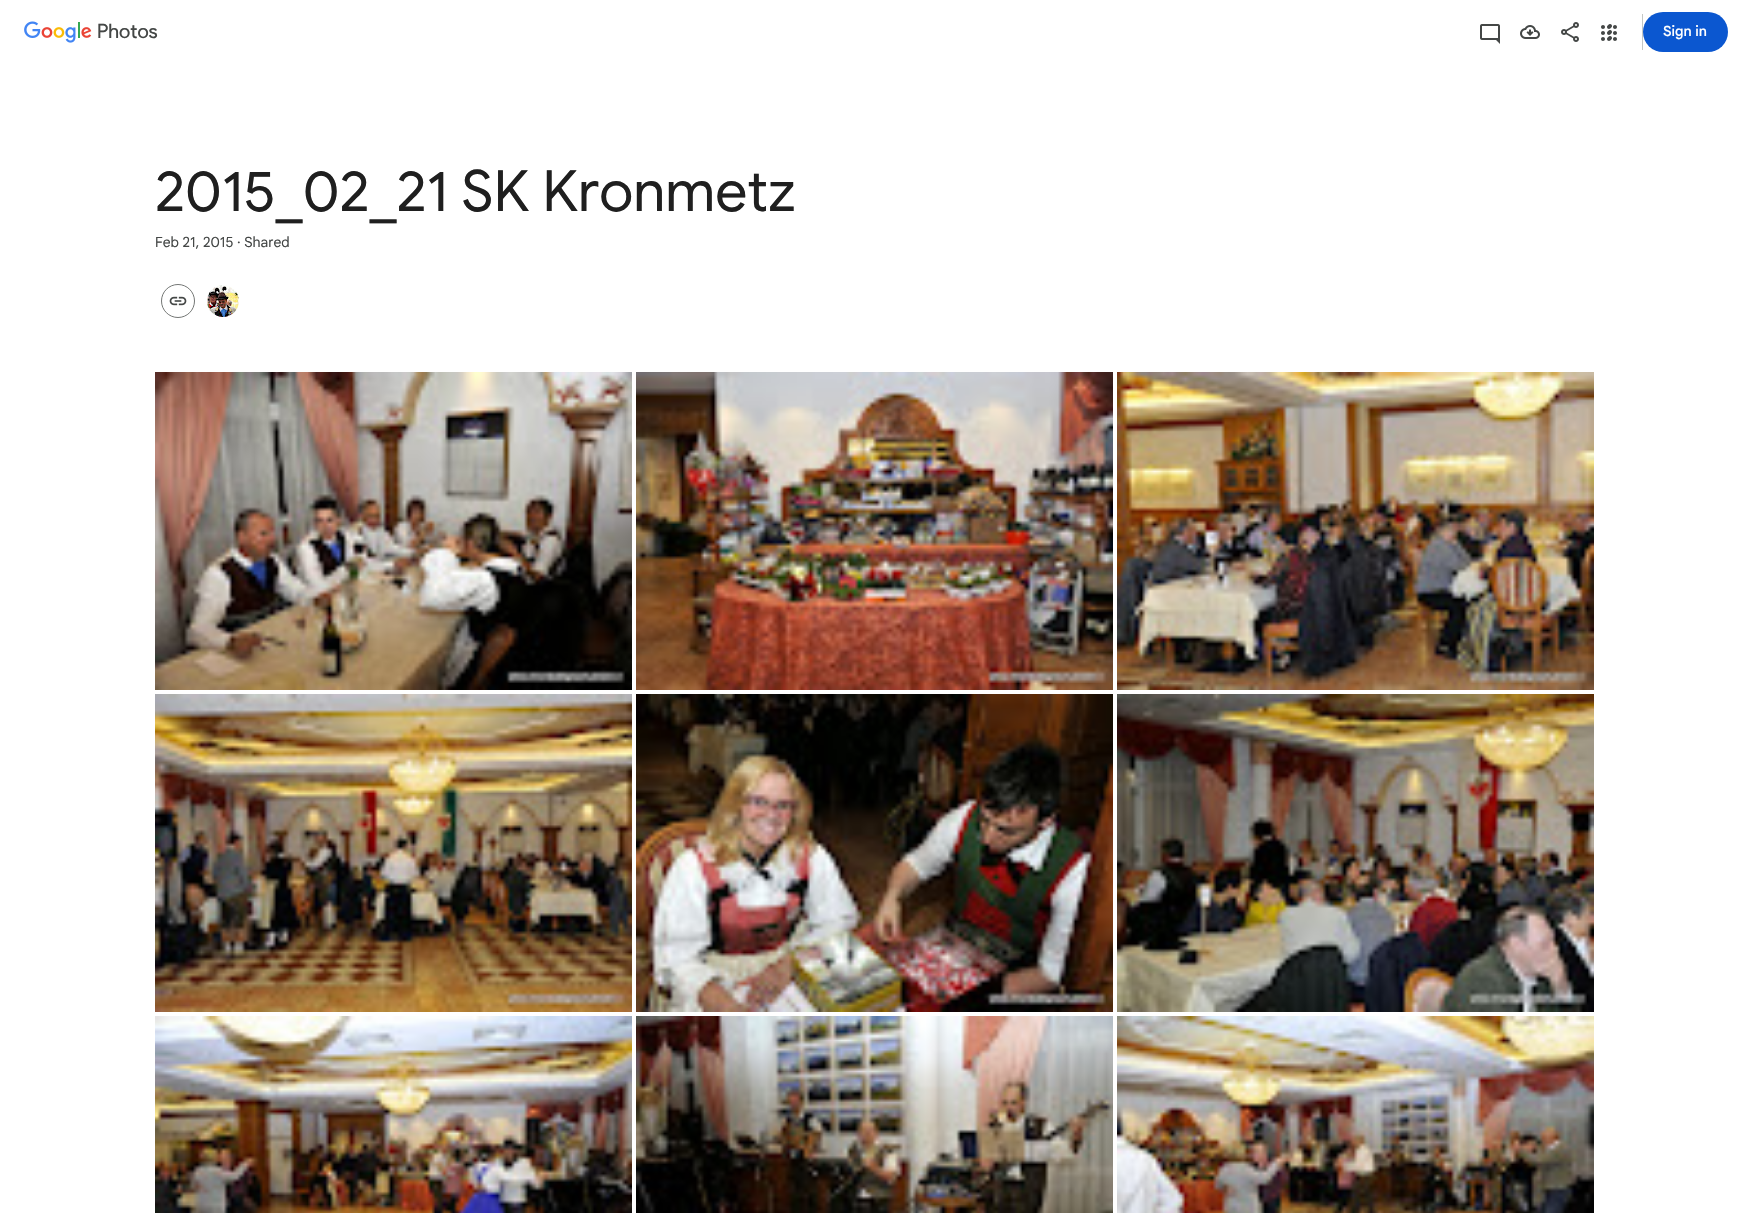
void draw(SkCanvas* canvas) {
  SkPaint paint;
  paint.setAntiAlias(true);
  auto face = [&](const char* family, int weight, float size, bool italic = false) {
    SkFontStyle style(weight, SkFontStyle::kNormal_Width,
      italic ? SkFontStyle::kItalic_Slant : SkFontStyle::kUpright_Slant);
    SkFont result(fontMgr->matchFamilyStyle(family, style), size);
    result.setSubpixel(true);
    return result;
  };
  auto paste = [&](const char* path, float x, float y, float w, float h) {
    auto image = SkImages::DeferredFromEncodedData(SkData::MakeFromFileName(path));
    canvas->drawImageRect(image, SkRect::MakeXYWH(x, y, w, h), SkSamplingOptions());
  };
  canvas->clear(0xffffffff);
  paste("img/1.png", 24, 21, 68, 22);
  paste("img/2.png", 1480, 24, 20, 20);
  paste("img/3.png", 1520, 25, 20, 14);
  paste("img/4.png", 1561, 22, 18, 20);
  paste("img/5.png", 1608, 24, 4, 16);
  paint.setColor(0xffc4c7c5);
  canvas->drawRect(SkRect::MakeXYWH(1642, 14, 1, 36), paint);
  paint.setStroke(true);
  paint.setStrokeWidth(1);
  paint.setColor(0xff747775);
  canvas->drawCircle(178, 301, 16.5f, paint);
  paste("img/6.png", 169, 296, 18, 10);
  paste("img/7.png", 207, 285, 32, 32);
  paste("img/8.png", 155, 372, 477, 318);
  paste("img/9.png", 636, 372, 477, 318);
  paste("img/10.png", 1117, 372, 477, 318);
  paste("img/11.png", 155, 694, 477, 318);
  paste("img/12.png", 636, 694, 477, 318);
  paste("img/13.png", 1117, 694, 477, 318);
  paste("img/14.png", 155, 1016, 477, 197);
  paste("img/15.png", 636, 1016, 477, 197);
  paste("img/16.png", 1117, 1016, 477, 197);
  paste("img/17.png", 1601, 25, 16, 16);
  paint.setStroke(false);
  paint.setColor(0xff0b57d0);
  canvas->drawRoundRect(SkRect::MakeXYWH(1643, 12, 85, 40), 20, 20, paint);
  auto f0 = face("Product Sans", 400, 20);
  paint.setColor(0xff444746);
  canvas->drawString("Photos", 97, 38, f0, paint);
  auto f1 = face("Google Sans", 400, 57);
  paint.setColor(0xff1f1f1f);
  canvas->drawString("2015_02_21 SK Kronmetz", 155, 211, f1, paint);
  auto f2 = face("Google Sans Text", 400, 14);
  paint.setColor(0xff444746);
  canvas->drawString("Feb 21, 2015 · Shared", 155, 247, f2, paint);
  auto f3 = face("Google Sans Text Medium", 500, 14);
  paint.setColor(0xffffffff);
  canvas->drawString("Sign in", 1663, 36, f3, paint);
}
